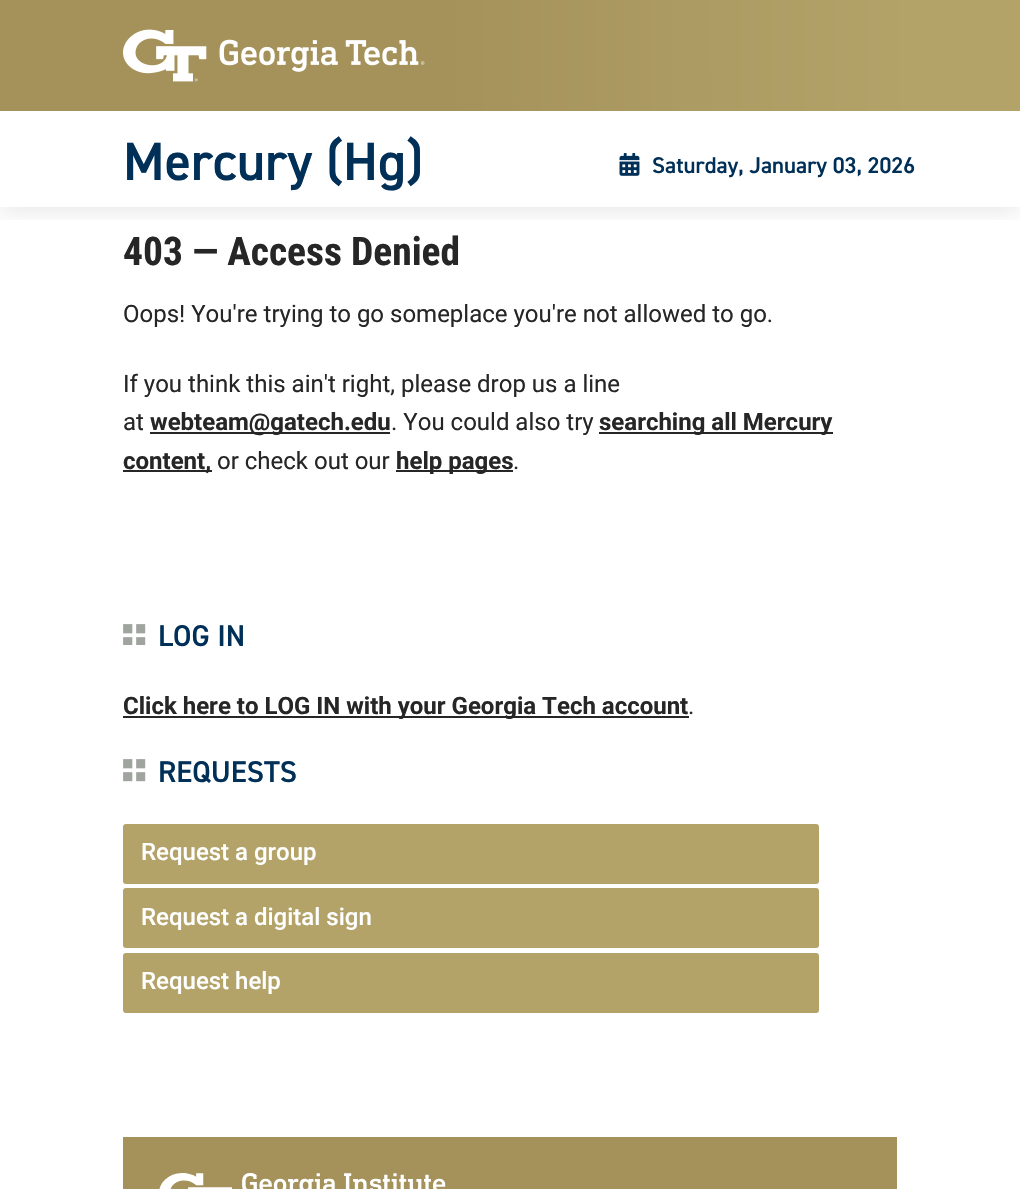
void draw(SkCanvas* canvas) {
  SkPaint paint;
  paint.setAntiAlias(true);
  auto face = [&](const char* family, int weight, float size, bool italic = false) {
    SkFontStyle style(weight, SkFontStyle::kNormal_Width,
      italic ? SkFontStyle::kItalic_Slant : SkFontStyle::kUpright_Slant);
    SkFont result(fontMgr->matchFamilyStyle(family, style), size);
    result.setSubpixel(true);
    return result;
  };
  auto paste = [&](const char* path, float x, float y, float w, float h) {
    auto image = SkImages::DeferredFromEncodedData(SkData::MakeFromFileName(path));
    canvas->drawImageRect(image, SkRect::MakeXYWH(x, y, w, h), SkSamplingOptions());
  };
  canvas->clear(0xffffffff);
  canvas->save();
  canvas->clipRect(SkRect::MakeXYWH(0, 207, 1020, 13));
  paint.setColor(0x1a000000);
  paint.setMaskFilter(SkMaskFilter::MakeBlur(kNormal_SkBlurStyle, 12));
  canvas->drawRect(SkRect::MakeXYWH(0, 3, 1020, 207), paint);
  paint.setMaskFilter(nullptr);
  canvas->restore();
  paint.setColor(0xffa4925a);
  canvas->drawRect(SkRect::MakeXYWH(0, 0, 443, 111), paint);
  paint.setColor(0xffb3a369);
  canvas->drawRect(SkRect::MakeXYWH(915, 0, 105, 111), paint);
  paste("img/1.png", 123, 29, 302, 53);
  {
    const SkColor colors[] = {0xffa4925a, 0xffb3a369};
    const float stops[] = {0, 1};
    const SkPoint ends[] = {{443, 56}, {915, 55}};
    paint.setShader(SkGradientShader::MakeLinear(ends, colors, stops, 2, SkTileMode::kClamp));
    paint.setAlpha(255);
  }
  canvas->drawRect(SkRect::MakeXYWH(443, 0, 472, 111), paint);
  paste("img/2.png", 619, 153, 21, 23);
  paint.setShader(nullptr);
  {
    const struct { float x, y, w, h; SkColor color; } items[] = {
      {150, 432, 240, 2, 0xff262626},
      {599, 432, 234, 2, 0xff262626},
      {123, 470, 89, 2, 0xff262626},
      {396, 470, 117, 2, 0xff262626},
    };
    for (auto [x, y, w, h, color] : items) {
      paint.setColor(color);
      canvas->drawRect(SkRect::MakeXYWH(x, y, w, h), paint);
    }
  }
  paste("img/3.png", 123, 624, 23, 21);
  canvas->drawRect(SkRect::MakeXYWH(123, 716, 566, 2), paint);
  paste("img/4.png", 123, 759, 23, 23);
  paint.setColor(0xffb3a369);
  canvas->drawRoundRect(SkRect::MakeXYWH(123, 824, 696, 60), 3, 3, paint);
  canvas->drawRoundRect(SkRect::MakeXYWH(123, 888, 696, 60), 3, 3, paint);
  canvas->drawRoundRect(SkRect::MakeXYWH(123, 953, 696, 60), 3, 3, paint);
  paint.setColor(0xffa4925a);
  canvas->drawRect(SkRect::MakeXYWH(123, 1137, 774, 52), paint);
  paste("img/5.png", 159, 1173, 287, 16);
  auto f0 = face("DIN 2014", 600, 54);
  paint.setColor(0xff003057);
  canvas->drawString("Mercury (Hg)", 123, 180, f0, paint);
  auto f1 = face("DIN 2014", 600, 22.75f);
  canvas->drawString("Saturday, January 03, 2026", 652, 173, f1, paint);
  auto f2 = face("Roboto Condensed", 700, 39.5f);
  paint.setColor(0xff262626);
  canvas->drawString("403 — Access Denied", 123, 265, f2, paint);
  auto f3 = face("Roboto", 400, 24);
  {
    const struct { const char* s; float x, y; } items[] = {
      {"Oops! You're trying to go someplace you're not allowed to go.", 123, 322},
      {"If you think this ain't right, please drop us a line", 123, 392},
      {"at", 123, 430},
    };
    for (auto [s, x, y] : items) {
      canvas->drawString(s, x, y, f3, paint);
    }
  }
  auto f4 = face("Roboto", 700, 24);
  canvas->drawString("webteam@gatech.edu", 150, 430, f4, paint);
  canvas->drawString(". You could also try", 391, 430, f3, paint);
  canvas->drawString("searching all Mercury", 599, 430, f4, paint);
  canvas->drawString("content,", 123, 469, f4, paint);
  canvas->drawString("or check out our", 217, 469, f3, paint);
  canvas->drawString("help pages", 396, 469, f4, paint);
  canvas->drawString(".", 513, 469, f3, paint);
  auto f5 = face("DIN 2014", 600, 30);
  paint.setColor(0xff003057);
  canvas->drawString("LOG IN", 158, 646, f5, paint);
  paint.setColor(0xff262626);
  canvas->drawString("Click here to LOG IN with your Georgia Tech account", 123, 714, f4, paint);
  canvas->drawString(".", 688, 714, f3, paint);
  paint.setColor(0xff003057);
  canvas->drawString("REQUESTS", 158, 782, f5, paint);
  auto f6 = face("Roboto", 500, 24);
  paint.setColor(0xffffffff);
  {
    const struct { const char* s; float x, y; } items[] = {
      {"Request a group", 141, 860},
      {"Request a digital sign", 141, 925},
      {"Request help", 141, 989},
    };
    for (auto [s, x, y] : items) {
      canvas->drawString(s, x, y, f6, paint);
    }
  }
}
